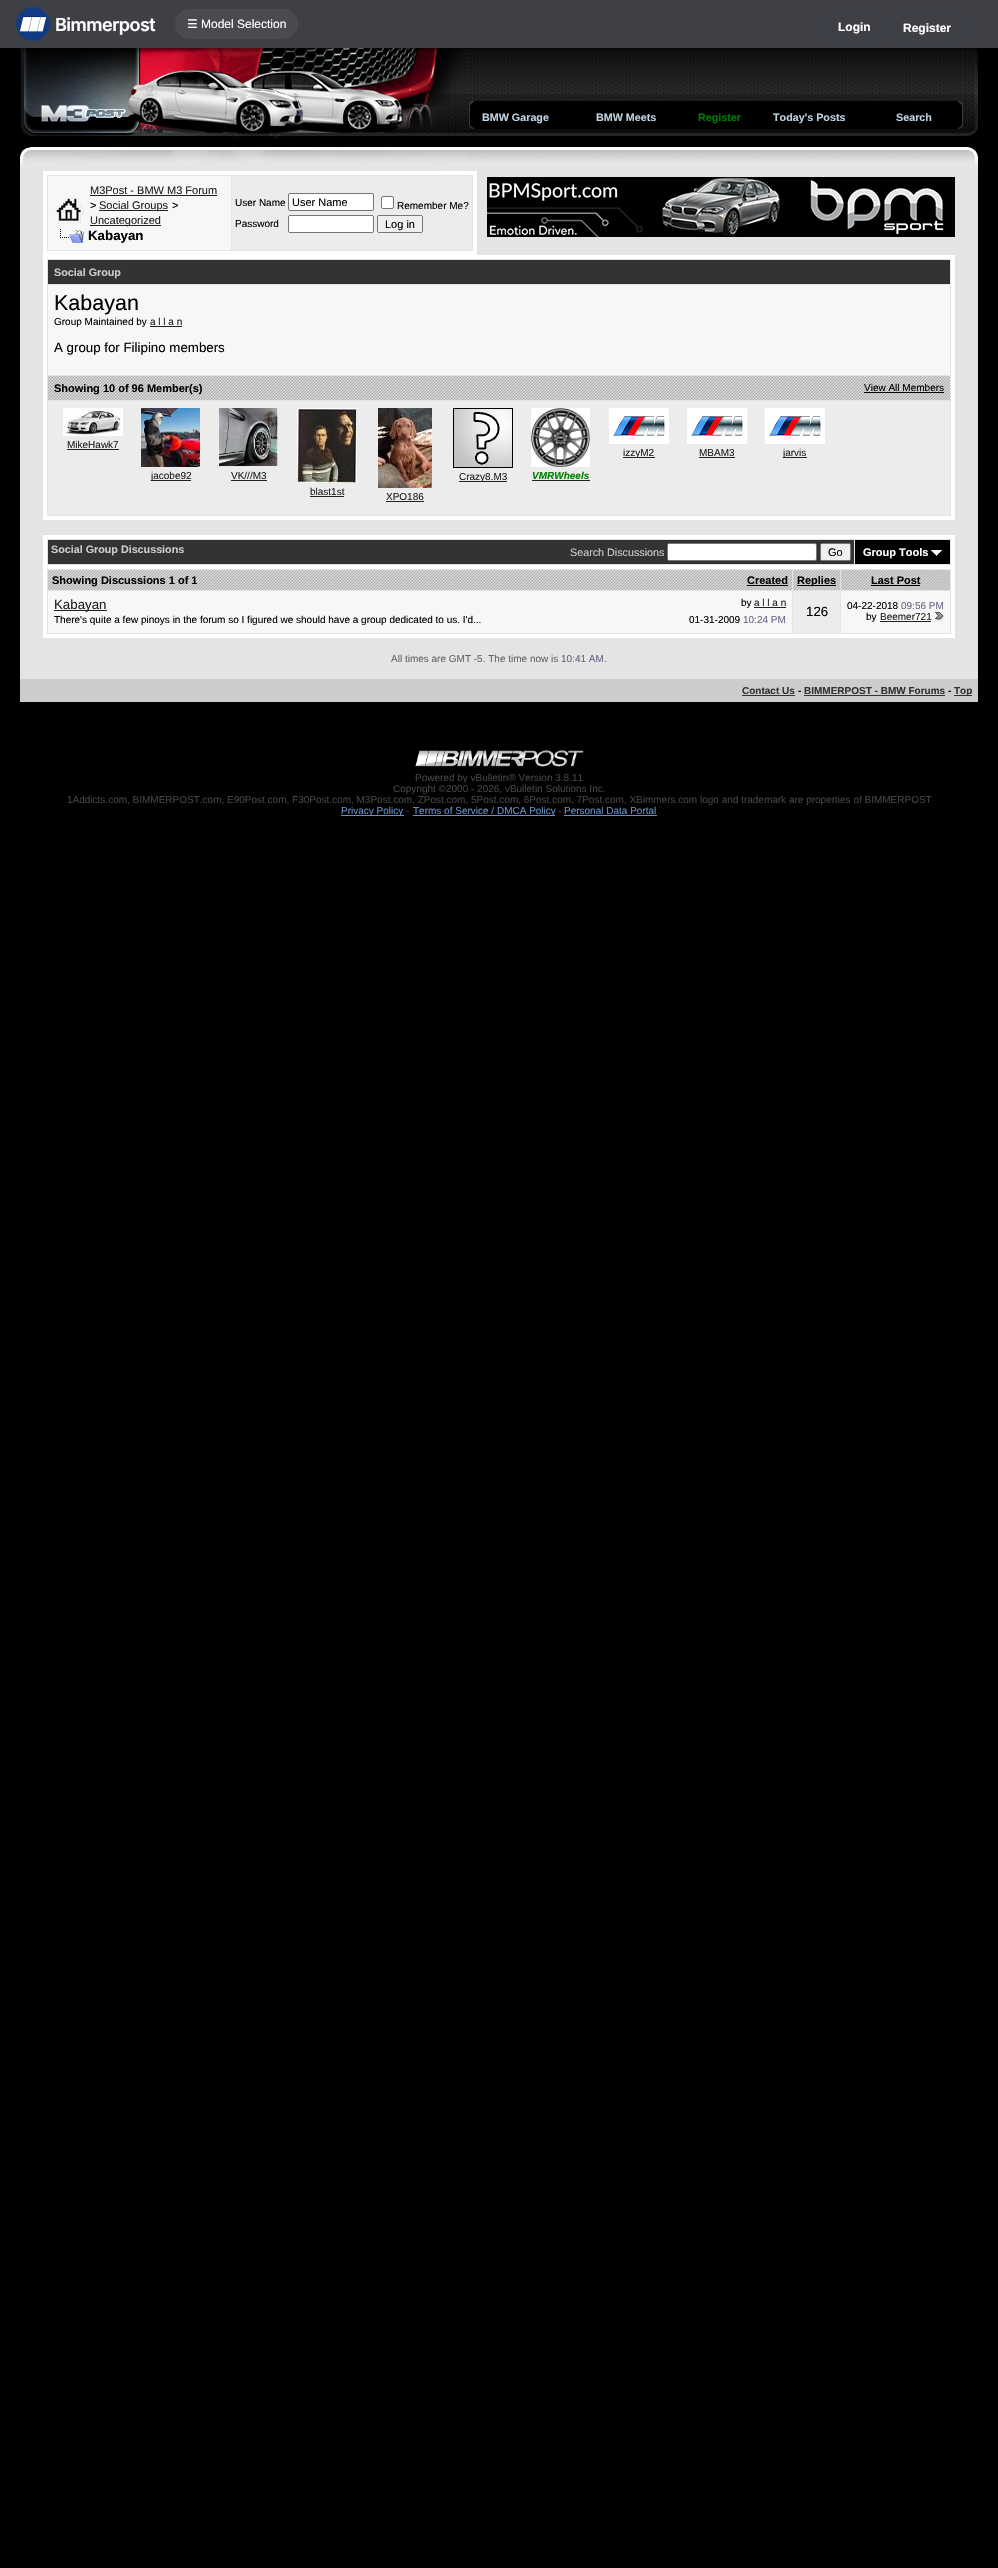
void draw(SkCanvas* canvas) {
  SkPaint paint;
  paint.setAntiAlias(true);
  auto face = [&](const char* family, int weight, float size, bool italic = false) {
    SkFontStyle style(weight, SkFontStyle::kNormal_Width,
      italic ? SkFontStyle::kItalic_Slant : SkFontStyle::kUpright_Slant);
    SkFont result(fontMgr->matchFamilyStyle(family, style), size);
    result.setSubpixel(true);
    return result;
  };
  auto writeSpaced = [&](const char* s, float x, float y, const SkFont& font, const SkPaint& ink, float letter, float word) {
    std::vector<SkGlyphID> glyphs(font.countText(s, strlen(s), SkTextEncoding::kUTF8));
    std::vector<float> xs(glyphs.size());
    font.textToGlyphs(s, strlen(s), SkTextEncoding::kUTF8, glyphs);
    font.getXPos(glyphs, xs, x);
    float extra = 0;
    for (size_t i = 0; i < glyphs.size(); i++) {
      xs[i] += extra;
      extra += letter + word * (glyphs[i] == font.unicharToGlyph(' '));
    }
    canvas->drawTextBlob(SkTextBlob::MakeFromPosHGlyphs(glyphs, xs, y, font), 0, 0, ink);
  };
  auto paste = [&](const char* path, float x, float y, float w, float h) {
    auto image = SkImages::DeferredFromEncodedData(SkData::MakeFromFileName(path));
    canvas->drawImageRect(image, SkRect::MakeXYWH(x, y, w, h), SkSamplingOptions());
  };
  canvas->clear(0xff000000);
  paint.setColor(0xff3e4046);
  canvas->drawRect(SkRect::MakeXYWH(0, 0, 998, 48), paint);
  paste("img/1.png", 16, 7, 34, 34);
  paint.setColor(0xff494b51);
  canvas->drawRoundRect(SkRect::MakeXYWH(175, 9, 123, 30), 15, 15, paint);
  paint.setStroke(true);
  paint.setStrokeWidth(1);
  paint.setColor(0xff3c414f);
  canvas->drawRoundRect(SkRect::MakeXYWH(825.5f, 13.5f, 58, 27), 13.5f, 13.5f, paint);
  canvas->drawRoundRect(SkRect::MakeXYWH(890.5f, 13.5f, 73, 28), 13.5f, 13.5f, paint);
  paste("img/2.png", 20, 48, 449, 123);
  paste("img/3.png", 469, 48, 494, 123);
  paste("img/4.png", 469, 101, 5, 28);
  paint.setStroke(false);
  paint.setColor(0xff000000);
  canvas->drawRect(SkRect::MakeXYWH(474, 101, 484, 28), paint);
  paste("img/5.png", 958, 101, 5, 28);
  paste("img/6.png", 963, 48, 15, 123);
  paint.setColor(0xffe4e4e4);
  canvas->drawRect(SkRect::MakeXYWH(20, 171, 958, 508), paint);
  paint.setStroke(true);
  paint.setStrokeWidth(4);
  paint.setColor(0xffffffff);
  canvas->drawRect(SkRect::MakeXYWH(45, 173, 430, 80), paint);
  paint.setStroke(false);
  paint.setColor(0xfff7f7f7);
  canvas->drawRect(SkRect::MakeXYWH(48, 176, 183, 74), paint);
  paste("img/7.png", 55, 197, 29, 27);
  {
    const struct { float x, y, w, h; SkColor color; } items[] = {
      {90, 195, 127, 1, 0xff222222},
      {99, 210, 69, 1, 0xff222222},
      {90, 225, 71, 1, 0xff222222},
    };
    for (auto [x, y, w, h, color] : items) {
      paint.setColor(color);
      canvas->drawRect(SkRect::MakeXYWH(x, y, w, h), paint);
    }
  }
  paste("img/8.png", 60, 229, 24, 14);
  paint.setColor(0xffececec);
  canvas->drawRect(SkRect::MakeXYWH(232, 176, 240, 74), paint);
  paint.setColor(0xffffffff);
  canvas->drawRoundRect(SkRect::MakeXYWH(288.5f, 193.5f, 85, 17), 1.5f, 1.5f, paint);
  paint.setStroke(true);
  paint.setStrokeWidth(1);
  paint.setColor(0xff767676);
  canvas->drawRoundRect(SkRect::MakeXYWH(288.5f, 193.5f, 85, 17), 1.5f, 1.5f, paint);
  paint.setStroke(false);
  paint.setColor(0xffffffff);
  canvas->drawRoundRect(SkRect::MakeXYWH(381.5f, 196.5f, 12, 12), 1.5f, 1.5f, paint);
  paint.setStroke(true);
  paint.setColor(0xff767676);
  canvas->drawRoundRect(SkRect::MakeXYWH(381.5f, 196.5f, 12, 12), 1.5f, 1.5f, paint);
  paint.setStroke(false);
  paint.setColor(0xffffffff);
  canvas->drawRoundRect(SkRect::MakeXYWH(288.5f, 215.5f, 85, 17), 1.5f, 1.5f, paint);
  paint.setStroke(true);
  paint.setColor(0xff767676);
  canvas->drawRoundRect(SkRect::MakeXYWH(288.5f, 215.5f, 85, 17), 1.5f, 1.5f, paint);
  paint.setStroke(false);
  paint.setColor(0xffefefef);
  canvas->drawRoundRect(SkRect::MakeXYWH(377.5f, 215.5f, 45, 17), 1.5f, 1.5f, paint);
  paint.setStroke(true);
  paint.setColor(0xff767676);
  canvas->drawRoundRect(SkRect::MakeXYWH(377.5f, 215.5f, 45, 17), 1.5f, 1.5f, paint);
  paste("img/9.png", 487, 177, 468, 60);
  paint.setStrokeWidth(4);
  paint.setColor(0xffffffff);
  canvas->drawRect(SkRect::MakeXYWH(45, 257, 908, 261), paint);
  paint.setStroke(false);
  {
    const struct { float x, y, w, h; SkColor color; } items[] = {
      {48, 260, 902, 24, 0xff333333},
      {48, 285, 902, 90, 0xfff7f7f7},
      {150, 326, 32, 1, 0xff222222},
    };
    for (auto [x, y, w, h, color] : items) {
      paint.setColor(color);
      canvas->drawRect(SkRect::MakeXYWH(x, y, w, h), paint);
    }
  }
  paste("img/10.png", 48, 376, 902, 24);
  paint.setColor(0xff000000);
  canvas->drawRect(SkRect::MakeXYWH(864, 392, 80, 1), paint);
  paint.setColor(0xffececec);
  canvas->drawRect(SkRect::MakeXYWH(48, 401, 902, 114), paint);
  paste("img/11.png", 63, 408, 60, 28);
  paint.setColor(0xff222222);
  canvas->drawRect(SkRect::MakeXYWH(67, 449, 52, 1), paint);
  paste("img/12.png", 609, 408, 60, 36);
  canvas->drawRect(SkRect::MakeXYWH(623, 457, 32, 1), paint);
  paste("img/12.png", 687, 408, 60, 36);
  canvas->drawRect(SkRect::MakeXYWH(699, 457, 36, 1), paint);
  paste("img/12.png", 765, 408, 60, 36);
  canvas->drawRect(SkRect::MakeXYWH(783, 457, 24, 1), paint);
  paste("img/13.png", 141, 408, 59, 59);
  canvas->drawRect(SkRect::MakeXYWH(151, 480, 40, 1), paint);
  paste("img/14.png", 219, 408, 59, 59);
  canvas->drawRect(SkRect::MakeXYWH(231, 480, 36, 1), paint);
  paste("img/15.png", 453, 408, 60, 60);
  canvas->drawRect(SkRect::MakeXYWH(459, 481, 48, 1), paint);
  paste("img/16.png", 531, 408, 59, 59);
  canvas->drawRect(SkRect::MakeXYWH(532, 480, 58, 1), paint);
  paste("img/17.png", 297, 408, 60, 75);
  canvas->drawRect(SkRect::MakeXYWH(310, 496, 34, 1), paint);
  paste("img/18.png", 378, 408, 54, 80);
  {
    const struct { float x, y, w, h; SkColor color; } items[] = {
      {386, 501, 38, 1, 0xff222222},
      {43, 535, 912, 4, 0xffffffff},
      {951, 535, 4, 30, 0xffffffff},
      {43, 535, 4, 30, 0xffffffff},
      {48, 540, 806, 24, 0xff333333},
    };
    for (auto [x, y, w, h, color] : items) {
      paint.setColor(color);
      canvas->drawRect(SkRect::MakeXYWH(x, y, w, h), paint);
    }
  }
  paint.setColor(0xffffffff);
  canvas->drawRoundRect(SkRect::MakeXYWH(667.5f, 543.5f, 149, 17), 1.5f, 1.5f, paint);
  paint.setStroke(true);
  paint.setStrokeWidth(1);
  paint.setColor(0xff767676);
  canvas->drawRoundRect(SkRect::MakeXYWH(667.5f, 543.5f, 149, 17), 1.5f, 1.5f, paint);
  paint.setStroke(false);
  paint.setColor(0xffefefef);
  canvas->drawRoundRect(SkRect::MakeXYWH(820.5f, 543.5f, 30, 17), 1.5f, 1.5f, paint);
  paint.setStroke(true);
  paint.setColor(0xff767676);
  canvas->drawRoundRect(SkRect::MakeXYWH(820.5f, 543.5f, 30, 17), 1.5f, 1.5f, paint);
  paint.setStroke(false);
  paint.setColor(0xff000000);
  canvas->drawRect(SkRect::MakeXYWH(855, 540, 95, 24), paint);
  paste("img/19.png", 931, 550, 11, 6);
  paint.setStroke(true);
  paint.setStrokeWidth(4);
  paint.setColor(0xffffffff);
  canvas->drawRect(SkRect::MakeXYWH(45, 567, 908, 69), paint);
  paste("img/20.png", 48, 570, 744, 20);
  paint.setStroke(false);
  paint.setColor(0xff000000);
  canvas->drawRect(SkRect::MakeXYWH(747, 585, 41, 1), paint);
  paste("img/21.png", 793, 570, 47, 20);
  canvas->drawRect(SkRect::MakeXYWH(797, 585, 39, 1), paint);
  paste("img/22.png", 841, 570, 109, 20);
  {
    const struct { float x, y, w, h; SkColor color; } items[] = {
      {871, 585, 49, 1, 0xff000000},
      {48, 591, 744, 42, 0xfff7f7f7},
      {54, 610, 53, 1, 0xff222222},
      {754, 607, 32, 1, 0xff222222},
      {793, 591, 47, 42, 0xffececec},
      {841, 591, 109, 42, 0xfff7f7f7},
      {880, 621, 51, 1, 0xff222222},
    };
    for (auto [x, y, w, h, color] : items) {
      paint.setColor(color);
      canvas->drawRect(SkRect::MakeXYWH(x, y, w, h), paint);
    }
  }
  paste("img/23.png", 935, 612, 9, 9);
  {
    const struct { float x, y, w, h; SkColor color; } items[] = {
      {20, 679, 958, 23, 0xffcccccc},
      {742, 695, 53, 1, 0xff333333},
      {804, 695, 141, 1, 0xff333333},
      {954, 695, 18, 1, 0xff333333},
    };
    for (auto [x, y, w, h, color] : items) {
      paint.setColor(color);
      canvas->drawRect(SkRect::MakeXYWH(x, y, w, h), paint);
    }
  }
  paste("img/24.png", 415, 750, 169, 17);
  {
    const struct { float x, y, w, h; SkColor color; } items[] = {
      {341, 815, 63, 1, 0xff6892c7},
      {413, 815, 142, 1, 0xff6892c7},
      {564, 815, 93, 1, 0xff6892c7},
    };
    for (auto [x, y, w, h, color] : items) {
      paint.setColor(color);
      canvas->drawRect(SkRect::MakeXYWH(x, y, w, h), paint);
    }
  }
  auto f0 = face("Inter", 600, 18);
  paint.setColor(0xffffffff);
  writeSpaced("Bimmerpost", 55, 31, f0, paint, -0.5f, 0);
  auto f1 = face("DejaVu Sans", 400, 12);
  canvas->drawString("☰", 187, 28, f1, paint);
  auto f2 = face("Liberation Sans", 400, 12);
  canvas->drawString("Model Selection", 201, 28, f2, paint);
  auto f3 = face("Liberation Sans", 700, 12);
  canvas->drawString("Login", 838, 31, f3, paint);
  canvas->drawString("Register", 903, 32, f3, paint);
  auto f4 = face("Liberation Sans", 700, 10.75f);
  paint.setColor(0xffbcd4e4);
  canvas->drawString("BMW Garage", 482, 121, f4, paint);
  canvas->drawString("BMW Meets", 596, 121, f4, paint);
  paint.setColor(0xff008000);
  canvas->drawString("Register", 698, 121, f4, paint);
  paint.setColor(0xffbcd4e4);
  canvas->drawString("Today's Posts", 773, 121, f4, paint);
  canvas->drawString("Search", 896, 121, f4, paint);
  auto f5 = face("Liberation Sans", 400, 11);
  paint.setColor(0xff222222);
  canvas->drawString("M3Post - BMW M3 Forum", 90, 194, f5, paint);
  paint.setColor(0xff000000);
  canvas->drawString(">", 90, 209, f5, paint);
  paint.setColor(0xff222222);
  canvas->drawString("Social Groups", 99, 209, f5, paint);
  paint.setColor(0xff000000);
  canvas->drawString(">", 172, 209, f5, paint);
  paint.setColor(0xff222222);
  canvas->drawString("Uncategorized", 90, 224, f5, paint);
  auto f6 = face("Liberation Sans", 700, 13.3f);
  paint.setColor(0xff000000);
  canvas->drawString("Kabayan", 88, 240, f6, paint);
  auto f7 = face("Liberation Sans", 400, 10);
  canvas->drawString("User Name", 235, 206, f7, paint);
  canvas->drawString("User Name", 292, 206, f5, paint);
  canvas->drawString("Remember Me?", 397, 209, f7, paint);
  canvas->drawString("Password", 235, 227, f7, paint);
  canvas->drawString("Log in", 385, 228, f5, paint);
  paint.setColor(0xffcccccc);
  canvas->drawString("Social Group", 54, 276, f4, paint);
  auto f8 = face("Liberation Sans", 400, 21.5f);
  paint.setColor(0xff000000);
  canvas->drawString("Kabayan", 54, 310, f8, paint);
  canvas->drawString("Group Maintained by", 54, 325, f7, paint);
  paint.setColor(0xff222222);
  canvas->drawString("a l l a n", 150, 325, f7, paint);
  auto f9 = face("Liberation Sans", 400, 13.3f);
  paint.setColor(0xff000000);
  canvas->drawString("A group for Filipino members", 54, 352, f9, paint);
  auto f10 = face("Liberation Sans", 700, 11);
  canvas->drawString("Showing 10 of 96 Member(s)", 54, 392, f10, paint);
  canvas->drawString("View All Members", 864, 391, f7, paint);
  paint.setColor(0xff222222);
  {
    const struct { const char* s; float x, y; } items[] = {
      {"MikeHawk7", 67, 448},
      {"izzyM2", 623, 456},
      {"MBAM3", 699, 456},
      {"jarvis", 783, 456},
      {"jacobe92", 151, 479},
      {"VK///M3", 231, 479},
      {"Crazy8.M3", 459, 480},
    };
    for (auto [s, x, y] : items) {
      canvas->drawString(s, x, y, f7, paint);
    }
  }
  auto f11 = face("Liberation Sans", 700, 10, true);
  paint.setColor(0xff008000);
  canvas->drawString("VMRWheels", 532, 479, f11, paint);
  paint.setColor(0xff222222);
  canvas->drawString("blast1st", 310, 495, f7, paint);
  canvas->drawString("XPO186", 386, 500, f7, paint);
  paint.setColor(0xffcccccc);
  canvas->drawString("Social Group Discussions", 51, 553, f4, paint);
  auto f12 = face("Liberation Sans", 400, 10.75f);
  canvas->drawString("Search Discussions", 570, 556, f12, paint);
  paint.setColor(0xff000000);
  canvas->drawString("Go", 828, 556, f5, paint);
  paint.setColor(0xffffffff);
  canvas->drawString("Group Tools", 863, 556, f10, paint);
  paint.setColor(0xff000000);
  {
    const struct { const char* s; float x, y; } items[] = {
      {"Showing Discussions 1 of 1", 52, 584},
      {"Created", 747, 584},
      {"Replies", 797, 584},
      {"Last Post", 871, 584},
    };
    for (auto [s, x, y] : items) {
      canvas->drawString(s, x, y, f10, paint);
    }
  }
  paint.setColor(0xff222222);
  canvas->drawString("Kabayan", 54, 609, f9, paint);
  paint.setColor(0xff000000);
  canvas->drawString("by", 741, 606, f7, paint);
  paint.setColor(0xff222222);
  canvas->drawString("a l l a n", 754, 606, f7, paint);
  paint.setColor(0xff000000);
  canvas->drawString("01-31-2009", 689, 623, f7, paint);
  paint.setColor(0xff666686);
  canvas->drawString("10:24 PM", 743, 623, f7, paint);
  paint.setColor(0xff000000);
  canvas->drawString("There's quite a few pinoys in the forum so I figured we should have a group dedicated to us. I'd...", 54, 623, f7, paint);
  canvas->drawString("126", 806, 616, f9, paint);
  canvas->drawString("04-22-2018", 847, 609, f7, paint);
  paint.setColor(0xff666686);
  canvas->drawString("09:56 PM", 901, 609, f7, paint);
  paint.setColor(0xff000000);
  canvas->drawString("by", 866, 620, f7, paint);
  paint.setColor(0xff222222);
  canvas->drawString("Beemer721", 880, 620, f7, paint);
  paint.setColor(0xff666666);
  canvas->drawString("All times are GMT -5. The time now is", 391, 662, f7, paint);
  paint.setColor(0xff666686);
  canvas->drawString("10:41 AM", 561, 662, f7, paint);
  paint.setColor(0xff666666);
  canvas->drawString(".", 604, 662, f7, paint);
  auto f13 = face("Liberation Sans", 700, 10);
  paint.setColor(0xff333333);
  canvas->drawString("Contact Us", 742, 694, f13, paint);
  paint.setColor(0xff000000);
  canvas->drawString("-", 798, 694, f13, paint);
  paint.setColor(0xff333333);
  canvas->drawString("BIMMERPOST - BMW Forums", 804, 694, f13, paint);
  paint.setColor(0xff000000);
  canvas->drawString("-", 948, 694, f13, paint);
  paint.setColor(0xff333333);
  canvas->drawString("Top", 954, 694, f13, paint);
  paint.setColor(0xff444444);
  {
    const struct { const char* s; float x, y; } items[] = {
      {"Powered by vBulletin® Version 3.8.11", 415, 781},
      {"Copyright ©2000 - 2026, vBulletin Solutions Inc.", 393, 792},
      {"1Addicts.com, BIMMERPOST.com, E90Post.com, F30Post.com, M3Post.com, ZPost.com, 5Post.com, 6Post.com, 7Post.com, XBimmers.com logo and trademark are properties of BIMMERPOST", 67, 803},
    };
    for (auto [s, x, y] : items) {
      canvas->drawString(s, x, y, f7, paint);
    }
  }
  paint.setColor(0xff6892c7);
  canvas->drawString("Privacy Policy", 341, 814, f7, paint);
  paint.setColor(0xff444444);
  canvas->drawString("-", 406, 814, f7, paint);
  paint.setColor(0xff6892c7);
  canvas->drawString("Terms of Service / DMCA Policy", 413, 814, f7, paint);
  paint.setColor(0xff444444);
  canvas->drawString("-", 558, 814, f7, paint);
  paint.setColor(0xff6892c7);
  canvas->drawString("Personal Data Portal", 564, 814, f7, paint);
}
